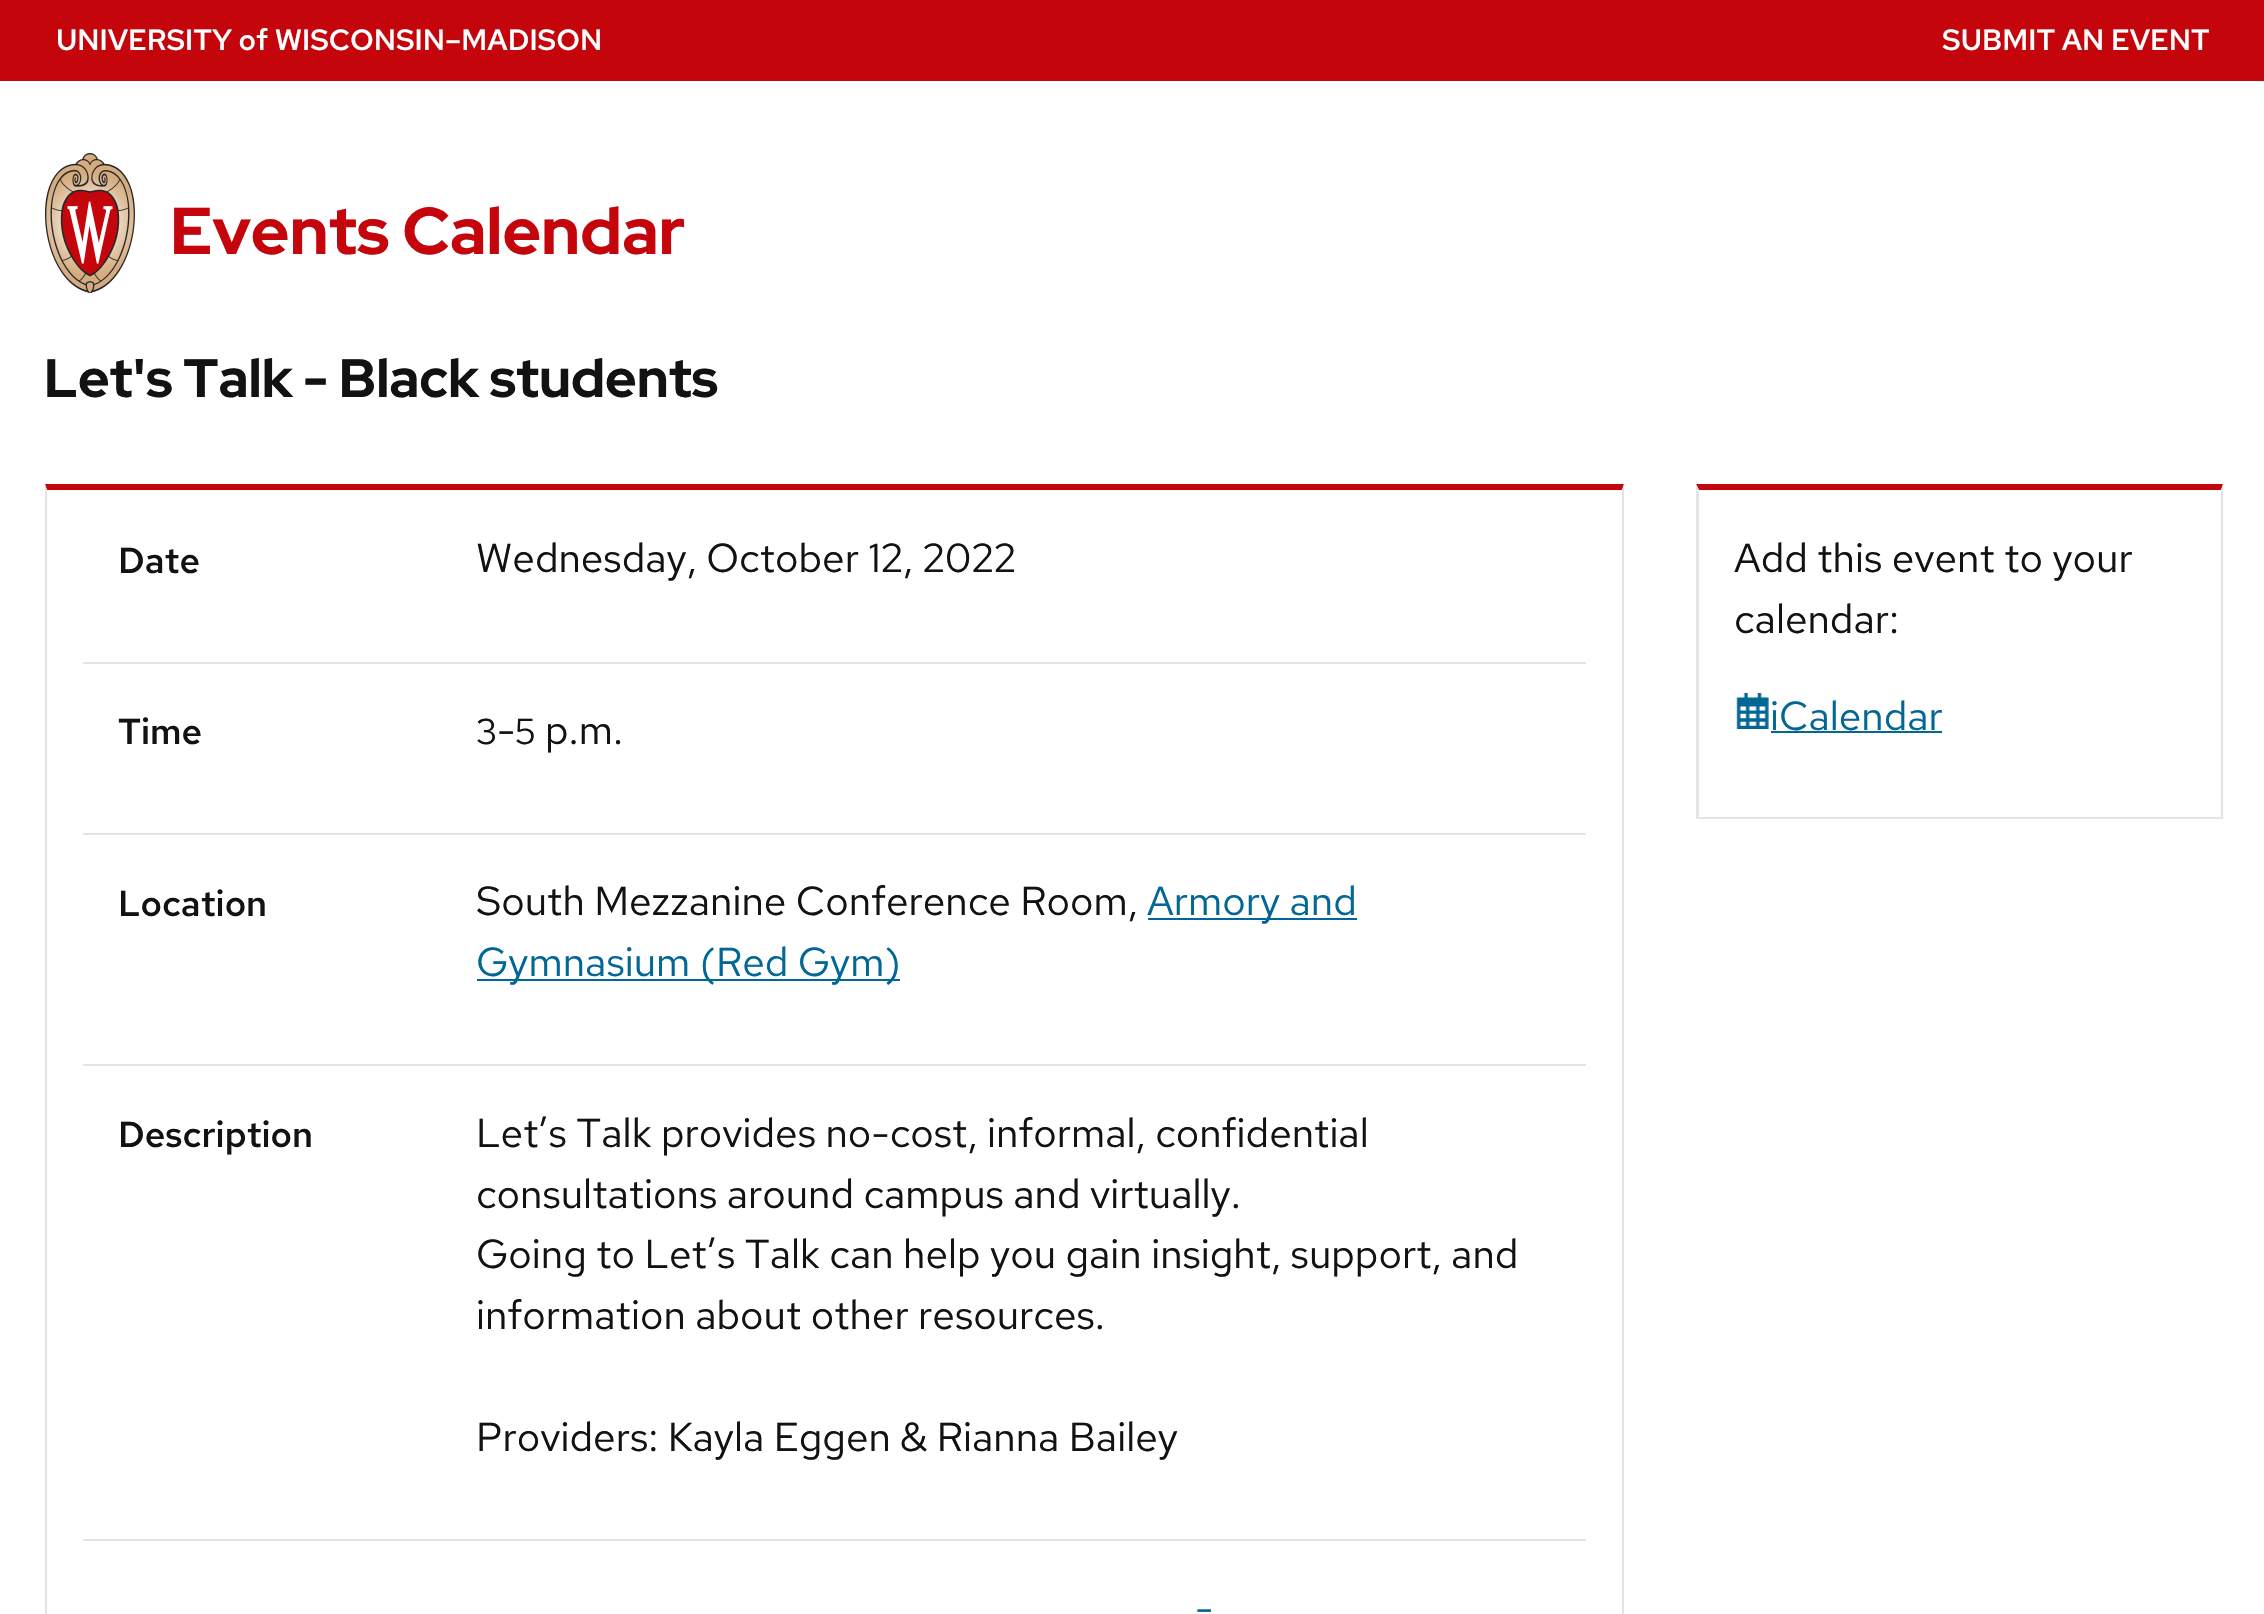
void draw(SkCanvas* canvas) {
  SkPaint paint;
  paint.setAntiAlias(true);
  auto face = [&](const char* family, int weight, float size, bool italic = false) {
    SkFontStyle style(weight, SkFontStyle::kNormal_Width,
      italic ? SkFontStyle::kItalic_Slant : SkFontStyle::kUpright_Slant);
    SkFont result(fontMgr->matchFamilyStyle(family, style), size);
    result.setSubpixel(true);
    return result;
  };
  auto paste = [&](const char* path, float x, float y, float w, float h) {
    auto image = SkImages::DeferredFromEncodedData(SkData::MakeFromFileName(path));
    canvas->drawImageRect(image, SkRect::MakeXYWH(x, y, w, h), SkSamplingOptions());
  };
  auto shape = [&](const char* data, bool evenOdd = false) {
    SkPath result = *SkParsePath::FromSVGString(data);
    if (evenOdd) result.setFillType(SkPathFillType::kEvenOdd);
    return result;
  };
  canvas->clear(0xffffffff);
  paint.setColor(0xffc5050c);
  canvas->drawRect(SkRect::MakeXYWH(0, 0, 2264, 81), paint);
  paste("img/1.png", 45, 153, 90, 140);
  canvas->drawPath(shape("M45 484H1624L1622 490H47Z"), paint);
  paint.setColor(0xffe1e5e7);
  canvas->drawPath(shape("M1624 484V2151L1622 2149V490Z"), paint);
  canvas->drawPath(shape("M45 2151V484L47 490V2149Z"), paint);
  {
    const struct { float x, y, w, h; SkColor color; } items[] = {
      {83, 662, 1503, 2, 0xffe1e5e7},
      {83, 833, 1503, 2, 0xffe1e5e7},
      {1148, 918, 209, 2, 0xff036796},
      {477, 979, 423, 2, 0xff036796},
      {83, 1064, 1503, 2, 0xffe1e5e7},
      {83, 1539, 1503, 2, 0xffe1e5e7},
    };
    for (auto [x, y, w, h, color] : items) {
      paint.setColor(color);
      canvas->drawRect(SkRect::MakeXYWH(x, y, w, h), paint);
    }
  }
  paint.setColor(0xffc5050c);
  canvas->drawPath(shape("M1696 484H2223L2221 490H1699Z"), paint);
  paint.setColor(0xffe1e5e7);
  canvas->drawPath(shape("M2223 484V819L2221 817V490Z"), paint);
  canvas->drawRect(SkRect::MakeXYWH(1697, 817, 526, 2), paint);
  canvas->drawPath(shape("M1696 819V484L1699 490V817Z"), paint);
  paste("img/2.png", 1736, 693, 33, 36);
  paint.setColor(0xff036796);
  canvas->drawRect(SkRect::MakeXYWH(1771, 731, 171, 2), paint);
  auto f0 = face("Red Hat Text", 500, 29.25f);
  paint.setColor(0xffffffff);
  canvas->drawString("UNIVERSITY of WISCONSIN–MADISON", 56, 50, f0, paint);
  canvas->drawString("SUBMIT AN EVENT", 1942, 50, f0, paint);
  auto f1 = face("Red Hat Display", 700, 66);
  paint.setColor(0xffc5050c);
  canvas->drawString("Events Calendar", 170, 254, f1, paint);
  auto f2 = face("Red Hat Display", 700, 54);
  paint.setColor(0xff121212);
  canvas->drawString("Let's Talk - Black students", 44, 397, f2, paint);
  auto f3 = face("Red Hat Text", 600, 36);
  canvas->drawString("Date", 118, 573, f3, paint);
  auto f4 = face("Red Hat Text", 400, 40.5f);
  canvas->drawString("Wednesday, October 12, 2022", 476, 572, f4, paint);
  canvas->drawString("Time", 118, 744, f3, paint);
  auto f5 = face("Red Hat Text", 400, 36);
  canvas->drawString("3", 476, 744, f5, paint);
  canvas->drawString("-", 497, 744, f4, paint);
  canvas->drawString("5", 515, 744, f5, paint);
  canvas->drawString("p.m.", 545, 744, f4, paint);
  canvas->drawString("Location", 118, 916, f3, paint);
  canvas->drawString("South Mezzanine Conference Room,", 476, 915, f4, paint);
  paint.setColor(0xff036796);
  canvas->drawString("Armory and", 1147, 915, f4, paint);
  canvas->drawString("Gymnasium (Red Gym)", 476, 976, f4, paint);
  paint.setColor(0xff121212);
  canvas->drawString("Description", 118, 1147, f3, paint);
  {
    const struct { const char* s; float x, y; } items[] = {
      {"Let’s Talk provides no-cost, informal, confidential", 476, 1147},
      {"consultations around campus and virtually.", 476, 1208},
      {"Going to Let’s Talk can help you gain insight, support, and", 476, 1268},
      {"information about other resources.", 476, 1329},
      {"Providers: Kayla Eggen & Rianna Bailey", 476, 1451},
    };
    for (auto [s, x, y] : items) {
      canvas->drawString(s, x, y, f4, paint);
    }
  }
  paint.setColor(0xff036796);
  canvas->drawString("-", 1195, 1622, f4, paint);
  paint.setColor(0xff121212);
  canvas->drawString("Add this event to your", 1734, 572, f4, paint);
  canvas->drawString("calendar:", 1734, 633, f4, paint);
  paint.setColor(0xff036796);
  canvas->drawString("iCalendar", 1770, 730, f4, paint);
}
